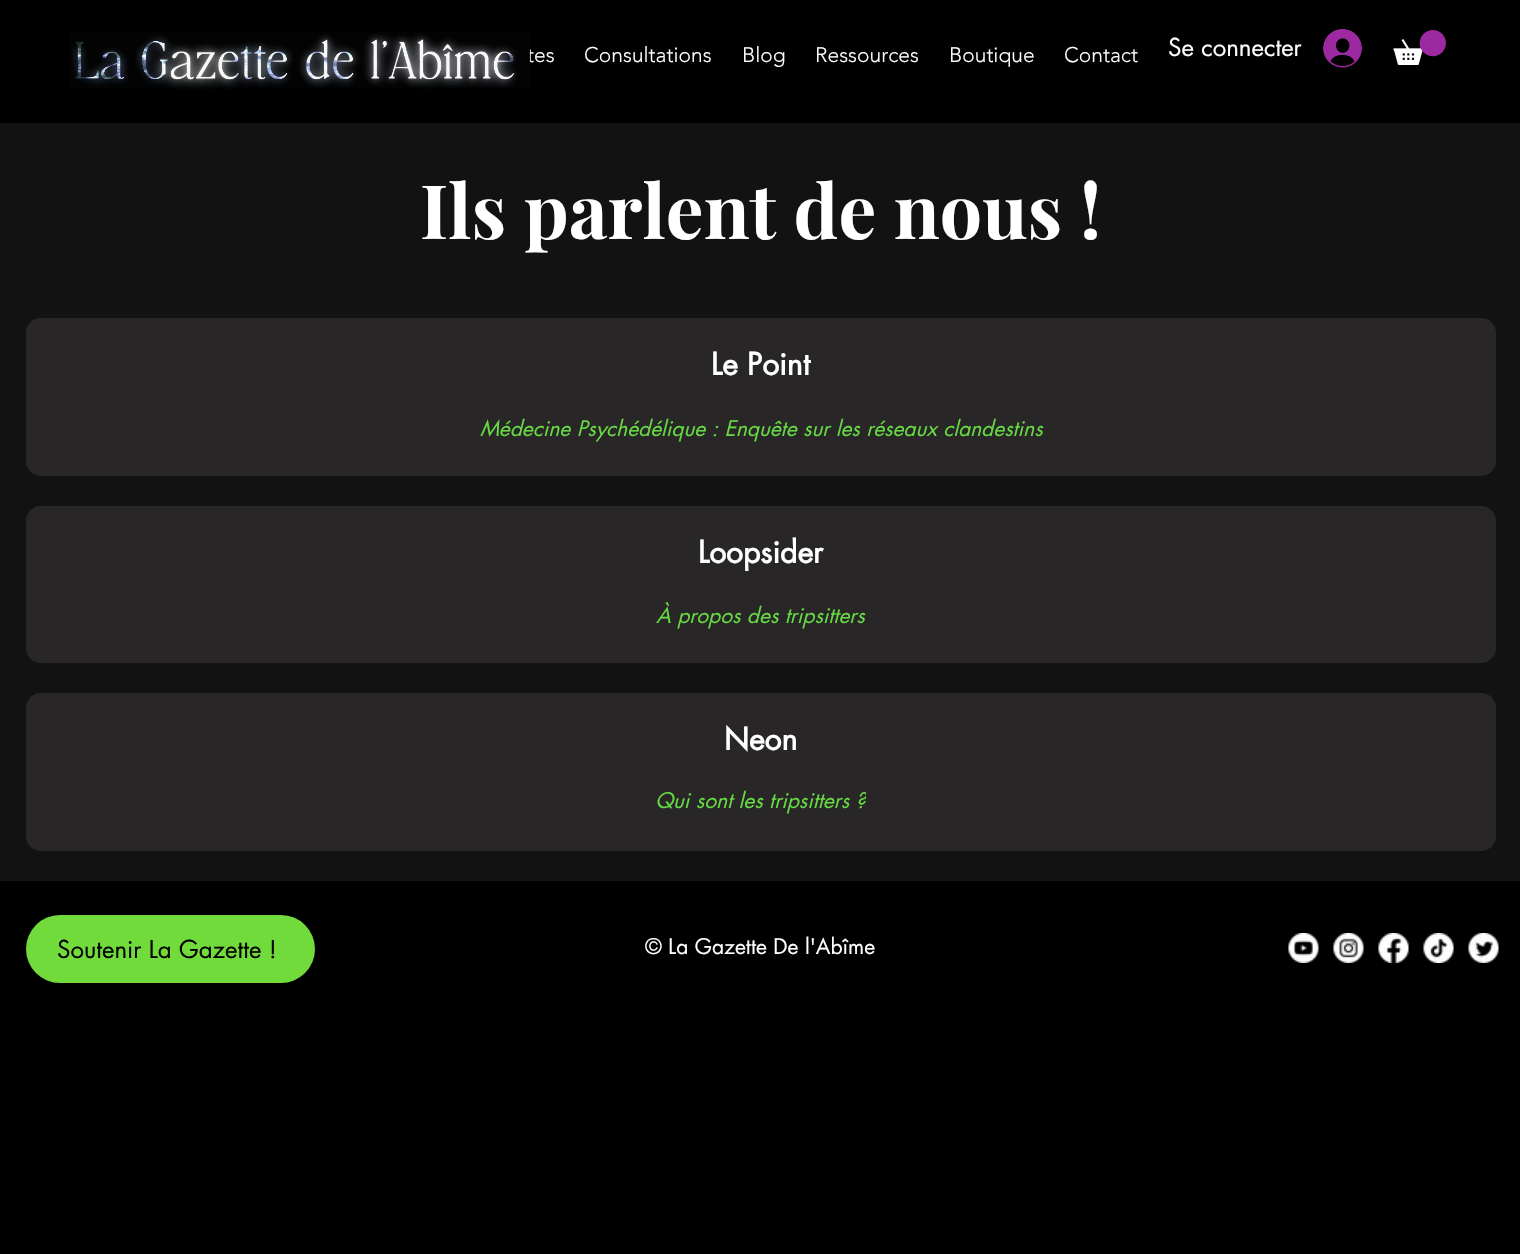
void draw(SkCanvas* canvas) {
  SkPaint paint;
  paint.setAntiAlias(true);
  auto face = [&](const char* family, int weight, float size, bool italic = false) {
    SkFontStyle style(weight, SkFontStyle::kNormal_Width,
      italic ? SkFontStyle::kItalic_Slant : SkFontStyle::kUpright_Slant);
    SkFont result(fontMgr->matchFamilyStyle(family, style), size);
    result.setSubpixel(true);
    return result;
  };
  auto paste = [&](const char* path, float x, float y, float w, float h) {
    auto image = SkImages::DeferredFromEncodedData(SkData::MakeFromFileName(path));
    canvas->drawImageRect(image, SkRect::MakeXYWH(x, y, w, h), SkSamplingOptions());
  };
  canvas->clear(0xff000000);
  paste("img/2.png", 1323, 29, 39, 39);
  paste("img/3.png", 1393, 30, 53, 35);
  paint.setColor(0xff121212);
  canvas->drawRect(SkRect::MakeXYWH(0, 123, 1520, 758), paint);
  paint.setColor(0xff282626);
  canvas->drawRoundRect(SkRect::MakeXYWH(26, 318, 1470, 158), 15, 15, paint);
  canvas->drawRoundRect(SkRect::MakeXYWH(26, 506, 1470, 157), 15, 15, paint);
  canvas->drawRoundRect(SkRect::MakeXYWH(26, 693, 1470, 158), 15, 15, paint);
  paint.setColor(0xff72db3c);
  canvas->drawRoundRect(SkRect::MakeXYWH(26, 915, 289, 68), 34, 34, paint);
  paste("img/4.png", 1288, 933, 31, 30);
  paste("img/5.png", 1333, 933, 31, 30);
  paste("img/6.png", 1378, 933, 31, 30);
  paste("img/7.png", 1423, 933, 31, 30);
  paste("img/8.png", 1468, 933, 31, 30);
  auto f0 = face("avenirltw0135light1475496", 300, 21);
  paint.setColor(0xffffffff);
  canvas->drawString("tes", 527, 62, f0, paint);
  paste("img/1.png", 70, 32, 460, 57);
  {
    const struct { const char* s; float x, y; } items[] = {
      {"Consultations", 584, 62},
      {"Blog", 742, 62},
      {"Ressources", 815, 62},
      {"Boutique", 949, 62},
      {"Contact", 1064, 62},
    };
    for (auto [s, x, y] : items) {
      canvas->drawString(s, x, y, f0, paint);
    }
  }
  auto f1 = face("futura", 400, 24);
  canvas->drawString("Se connecter", 1168, 56, f1, paint);
  auto f2 = face("Playfair Display", 700, 75);
  canvas->drawString("Ils parlent de nous !", 420, 239, f2, paint);
  auto f3 = face("futura", 700, 30);
  canvas->drawString("Le Point", 711, 375, f3, paint);
  auto f4 = face("futura", 400, 21, true);
  paint.setColor(0xff66da43);
  canvas->drawString("Médecine Psychédélique : Enquête sur les réseaux clandestins", 480, 436, f4, paint);
  paint.setColor(0xffffffff);
  canvas->drawString("Loopsider", 698, 563, f3, paint);
  paint.setColor(0xff66da43);
  canvas->drawString("À propos des tripsitters", 656, 623, f4, paint);
  paint.setColor(0xffffffff);
  canvas->drawString("Neon", 724, 750, f3, paint);
  canvas->save();
  canvas->clipRect(SkRect::MakeXYWH(656, 786, 210, 29));
  paint.setColor(0xff66da43);
  canvas->drawString("Qui sont les tripsitters ?", 655, 808, f4, paint);
  canvas->restore();
  paint.setColor(0xff000000);
  canvas->drawString("Soutenir La Gazette !", 57, 958, f1, paint);
  auto f5 = face("futura", 400, 21);
  paint.setColor(0xffffffff);
  canvas->drawString("© La Gazette De l'Abîme", 645, 954, f5, paint);
}
